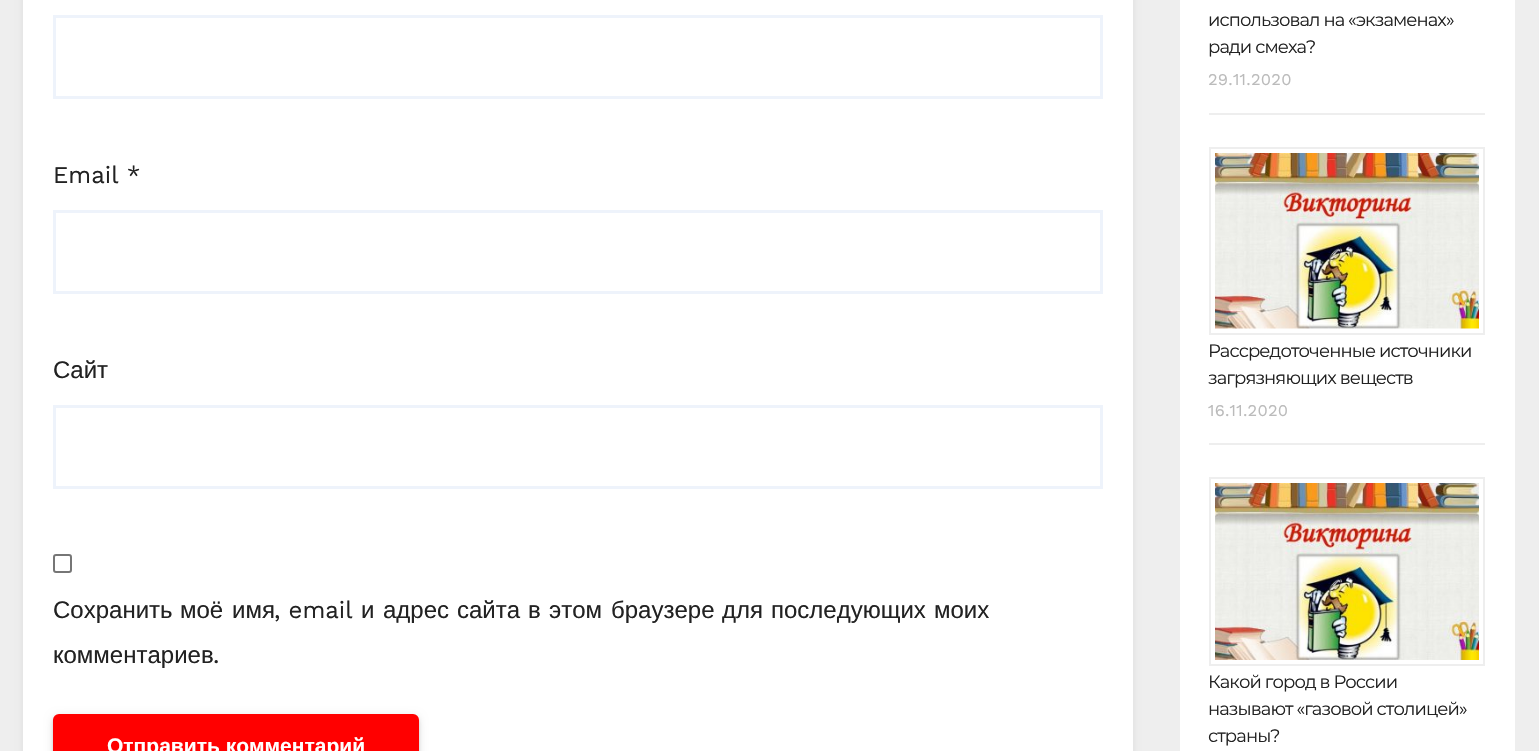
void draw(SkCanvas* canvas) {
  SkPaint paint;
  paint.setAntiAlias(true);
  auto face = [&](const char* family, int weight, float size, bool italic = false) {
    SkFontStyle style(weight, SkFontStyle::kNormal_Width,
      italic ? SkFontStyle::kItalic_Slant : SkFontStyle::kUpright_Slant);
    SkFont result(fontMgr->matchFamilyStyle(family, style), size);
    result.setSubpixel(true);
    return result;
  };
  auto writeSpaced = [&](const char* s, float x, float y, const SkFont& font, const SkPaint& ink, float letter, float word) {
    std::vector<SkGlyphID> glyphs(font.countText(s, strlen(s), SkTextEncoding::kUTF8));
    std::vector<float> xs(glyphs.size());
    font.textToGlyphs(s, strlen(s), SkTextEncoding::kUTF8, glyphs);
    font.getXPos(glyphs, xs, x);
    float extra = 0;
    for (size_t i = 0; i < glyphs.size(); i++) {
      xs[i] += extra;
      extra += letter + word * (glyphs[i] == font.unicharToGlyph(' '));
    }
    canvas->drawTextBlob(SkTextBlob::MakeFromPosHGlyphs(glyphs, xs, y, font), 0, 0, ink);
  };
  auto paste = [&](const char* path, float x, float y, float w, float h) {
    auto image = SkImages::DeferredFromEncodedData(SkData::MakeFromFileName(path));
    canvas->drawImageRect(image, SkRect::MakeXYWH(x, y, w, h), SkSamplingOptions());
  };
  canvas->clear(0xffeeeeee);
  paint.setColor(0x14000000);
  paint.setMaskFilter(SkMaskFilter::MakeBlur(kNormal_SkBlurStyle, 3));
  canvas->drawRect(SkRect::MakeXYWH(23, -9, 1110, 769), paint);
  paint.setMaskFilter(nullptr);
  paint.setColor(0xffffffff);
  canvas->drawRect(SkRect::MakeXYWH(23, 0, 1110, 751), paint);
  paint.setStroke(true);
  paint.setStrokeWidth(3);
  paint.setColor(0xffeef3fb);
  canvas->drawRect(SkRect::MakeXYWH(54.5f, 16.5f, 1047, 81), paint);
  canvas->drawRect(SkRect::MakeXYWH(54.5f, 211.5f, 1047, 81), paint);
  canvas->drawRect(SkRect::MakeXYWH(54.5f, 406.5f, 1047, 81), paint);
  paint.setStrokeWidth(2);
  paint.setColor(0xff767676);
  canvas->drawRoundRect(SkRect::MakeXYWH(54, 555, 17, 17), 2, 2, paint);
  paint.setStroke(false);
  paint.setColor(0x1f000000);
  paint.setMaskFilter(SkMaskFilter::MakeBlur(kNormal_SkBlurStyle, 4));
  canvas->drawRoundRect(SkRect::MakeXYWH(53, 716, 366, 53), 6, 6, paint);
  paint.setMaskFilter(nullptr);
  paint.setColor(0x24000000);
  paint.setMaskFilter(SkMaskFilter::MakeBlur(kNormal_SkBlurStyle, 1.5f));
  canvas->drawRoundRect(SkRect::MakeXYWH(53, 717, 366, 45), 6, 6, paint);
  paint.setMaskFilter(nullptr);
  paint.setColor(0xffff0000);
  canvas->drawRoundRect(SkRect::MakeXYWH(54, 715, 364, 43), 5, 5, paint);
  paint.setStroke(true);
  canvas->drawRoundRect(SkRect::MakeXYWH(54, 715, 364, 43), 5, 5, paint);
  paint.setStroke(false);
  {
    const struct { float x, y, w, h; SkColor color; } items[] = {
      {1180, 0, 335, 751, 0xffffffff},
      {1209, 113, 276, 2, 0xffeeeeee},
      {1209, 443, 276, 2, 0xffeeeeee},
    };
    for (auto [x, y, w, h, color] : items) {
      paint.setColor(color);
      canvas->drawRect(SkRect::MakeXYWH(x, y, w, h), paint);
    }
  }
  paint.setStroke(true);
  canvas->drawRect(SkRect::MakeXYWH(1210, 148, 274, 186), paint);
  paste("img/1.png", 1215, 153, 264, 176);
  canvas->drawRect(SkRect::MakeXYWH(1210, 478, 274, 187), paint);
  paste("img/2.png", 1215, 483, 264, 177);
  auto f0 = face("Work Sans", 400, 24);
  paint.setStroke(false);
  paint.setColor(0xff222222);
  canvas->drawString("Email *", 53, 183, f0, paint);
  auto f1 = face("Liberation Sans", 400, 24);
  {
    const struct { const char* s; float x, y; } items[] = {
      {"Сайт", 53, 378},
      {"Сохранить", 53, 618},
      {"моё", 180, 618},
      {"имя", 232, 618},
    };
    for (auto [s, x, y] : items) {
      canvas->drawString(s, x, y, f1, paint);
    }
  }
  canvas->drawString(", email", 274, 618, f0, paint);
  {
    const struct { const char* s; float x, y; } items[] = {
      {"и", 361, 618},
      {"адрес", 383, 618},
      {"сайта", 457, 618},
      {"в", 528, 618},
      {"этом", 549, 618},
      {"браузере", 611, 618},
      {"для", 722, 618},
      {"последующих", 771, 618},
      {"моих", 934, 618},
      {"комментариев", 53, 663},
    };
    for (auto [s, x, y] : items) {
      canvas->drawString(s, x, y, f1, paint);
    }
  }
  canvas->drawString(".", 213, 663, f0, paint);
  auto f2 = face("Liberation Sans", 700, 21);
  paint.setColor(0xffffffff);
  canvas->drawString("Отправить комментарий", 107, 753, f2, paint);
  auto f3 = face("Montserrat", 400, 18);
  paint.setColor(0xff222222);
  writeSpaced("использовал на «экзаменах»", 1208, 26, f3, paint, -0.9f, 0);
  writeSpaced("ради смеха?", 1208, 53, f3, paint, -0.9f, 0);
  auto f4 = face("Work Sans", 400, 16.5f);
  paint.setColor(0xffbbbbbb);
  writeSpaced("29.11.2020", 1208, 85, f4, paint, 0.25f, 0);
  paint.setColor(0xff222222);
  writeSpaced("Рассредоточенные источники", 1208, 357, f3, paint, -0.9f, 0);
  writeSpaced("загрязняющих веществ", 1208, 384, f3, paint, -0.9f, 0);
  paint.setColor(0xffbbbbbb);
  writeSpaced("16.11.2020", 1208, 416, f4, paint, 0.25f, 0);
  paint.setColor(0xff222222);
  {
    const struct { const char* s; float x, y; } items[] = {
      {"Какой город в России", 1208, 688},
      {"называют «газовой столицей»", 1208, 715},
      {"страны?", 1208, 742},
    };
    for (auto [s, x, y] : items) {
      writeSpaced(s, x, y, f3, paint, -0.9f, 0);
    }
  }
}
